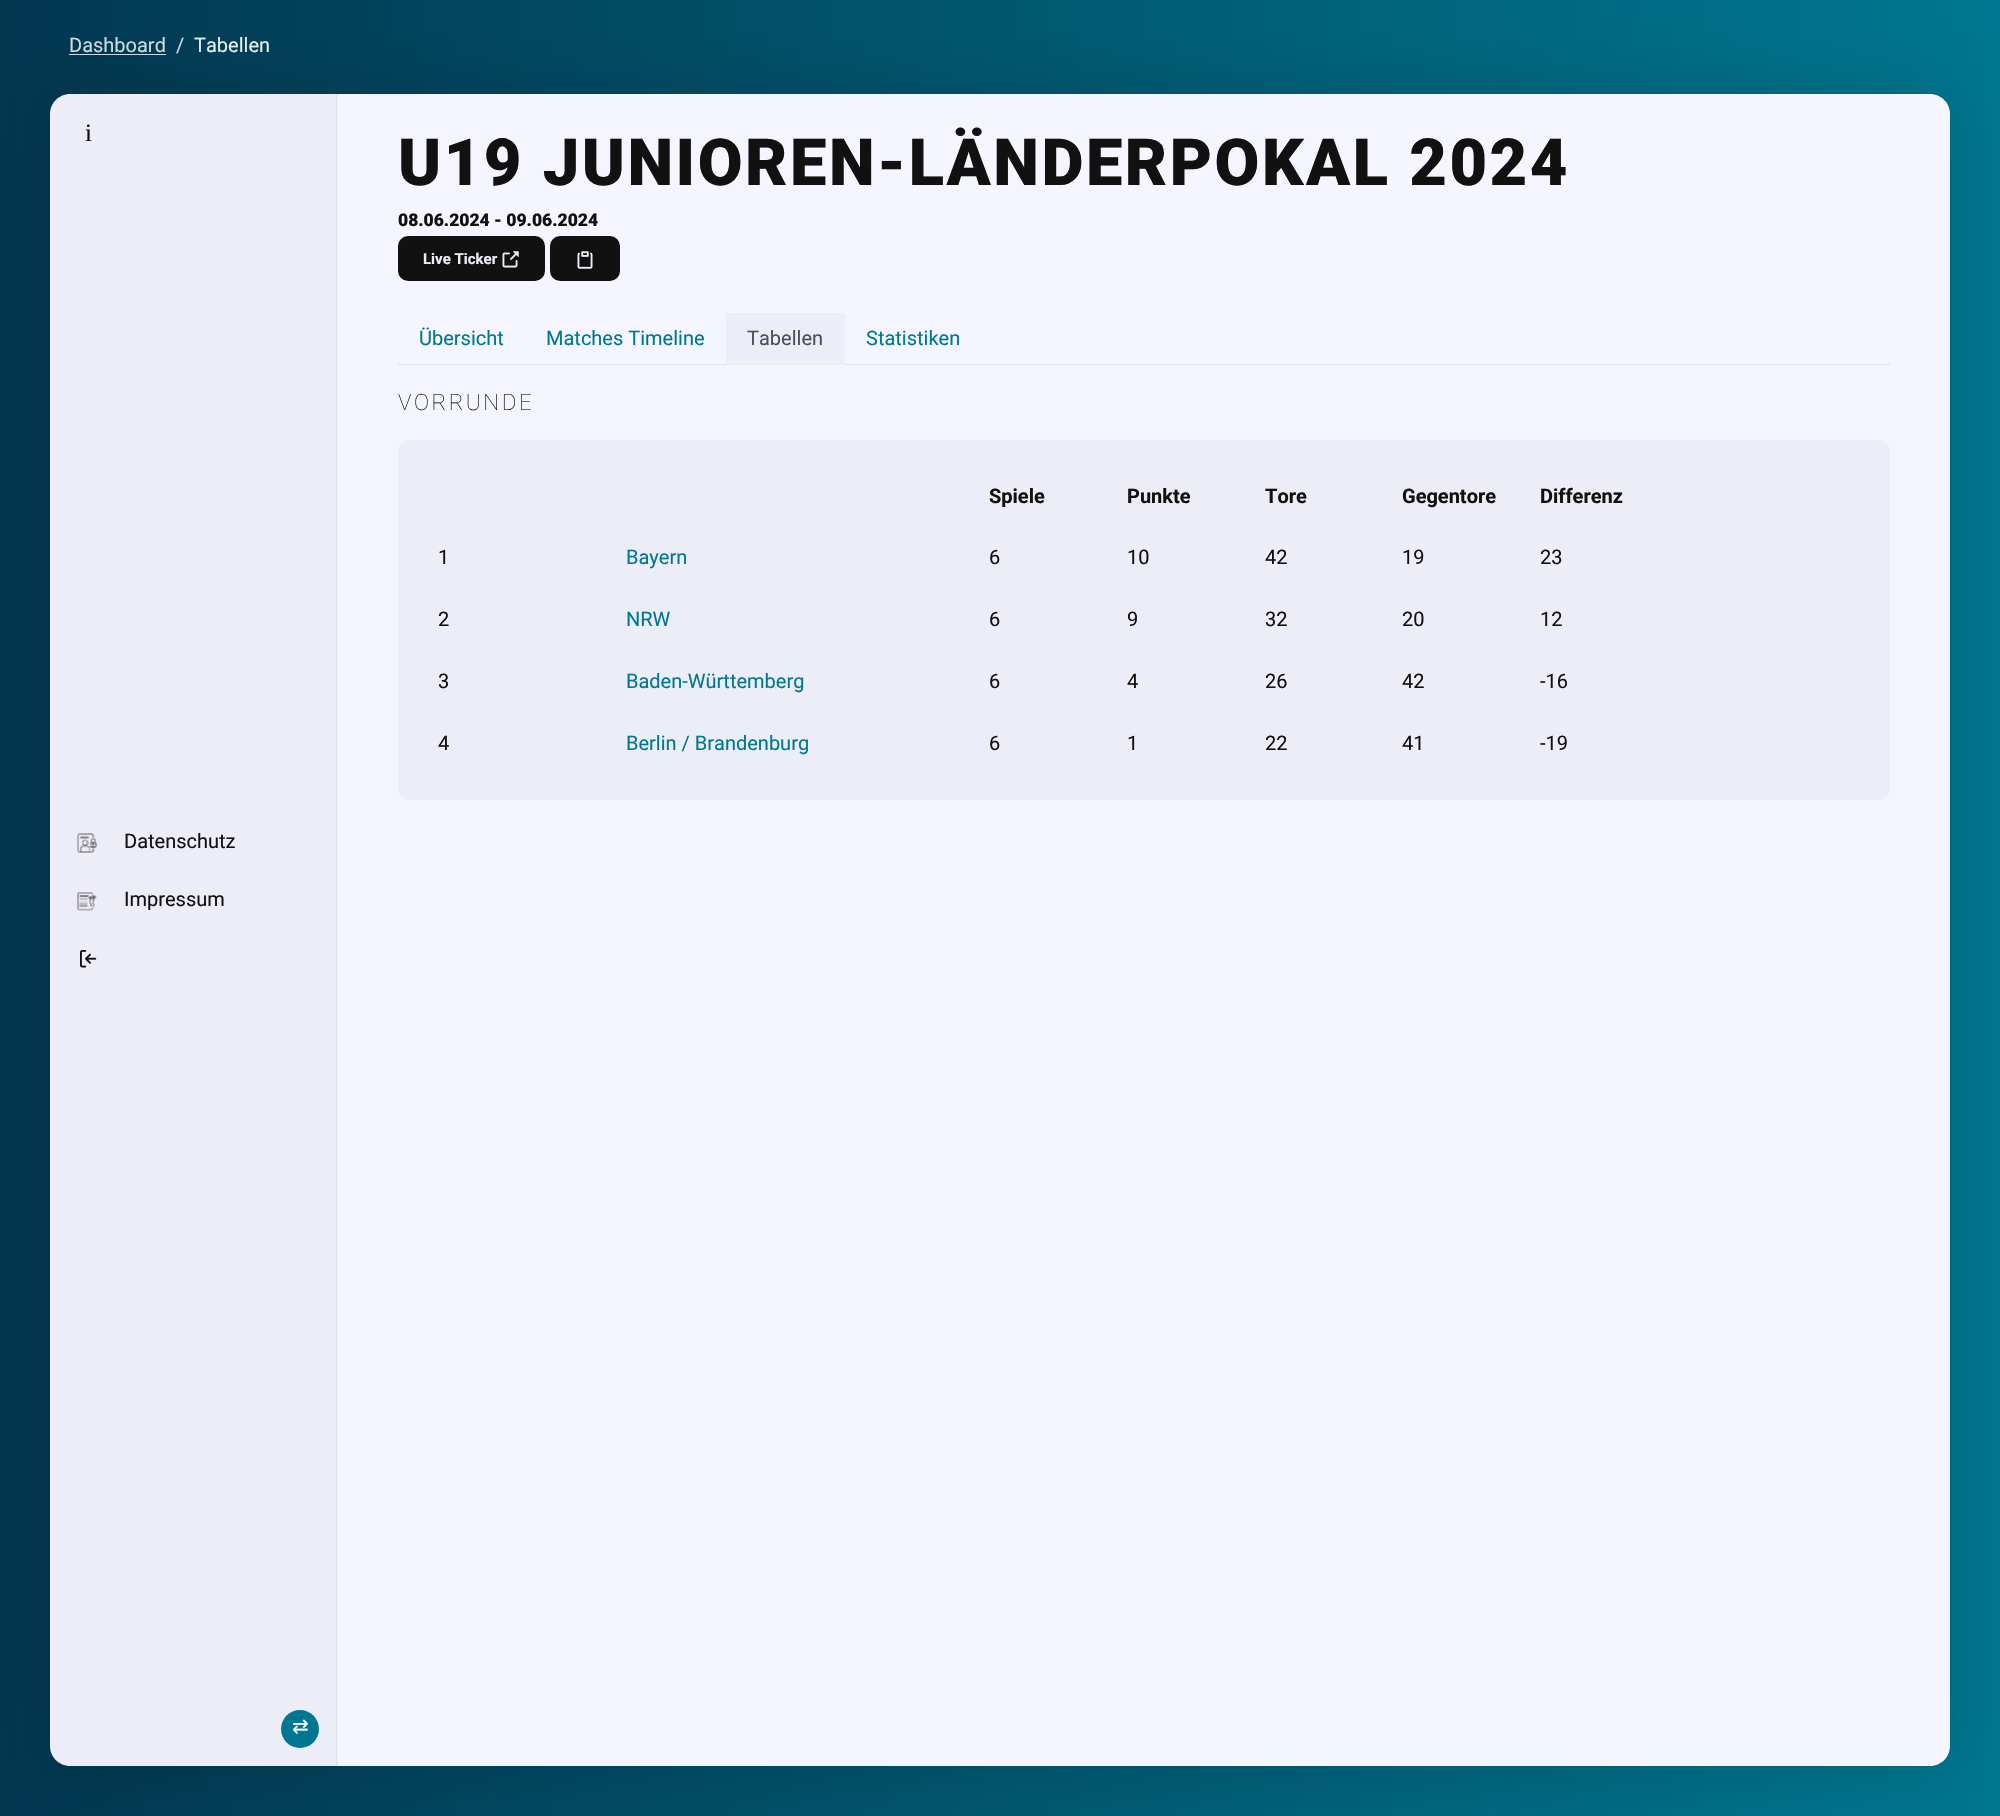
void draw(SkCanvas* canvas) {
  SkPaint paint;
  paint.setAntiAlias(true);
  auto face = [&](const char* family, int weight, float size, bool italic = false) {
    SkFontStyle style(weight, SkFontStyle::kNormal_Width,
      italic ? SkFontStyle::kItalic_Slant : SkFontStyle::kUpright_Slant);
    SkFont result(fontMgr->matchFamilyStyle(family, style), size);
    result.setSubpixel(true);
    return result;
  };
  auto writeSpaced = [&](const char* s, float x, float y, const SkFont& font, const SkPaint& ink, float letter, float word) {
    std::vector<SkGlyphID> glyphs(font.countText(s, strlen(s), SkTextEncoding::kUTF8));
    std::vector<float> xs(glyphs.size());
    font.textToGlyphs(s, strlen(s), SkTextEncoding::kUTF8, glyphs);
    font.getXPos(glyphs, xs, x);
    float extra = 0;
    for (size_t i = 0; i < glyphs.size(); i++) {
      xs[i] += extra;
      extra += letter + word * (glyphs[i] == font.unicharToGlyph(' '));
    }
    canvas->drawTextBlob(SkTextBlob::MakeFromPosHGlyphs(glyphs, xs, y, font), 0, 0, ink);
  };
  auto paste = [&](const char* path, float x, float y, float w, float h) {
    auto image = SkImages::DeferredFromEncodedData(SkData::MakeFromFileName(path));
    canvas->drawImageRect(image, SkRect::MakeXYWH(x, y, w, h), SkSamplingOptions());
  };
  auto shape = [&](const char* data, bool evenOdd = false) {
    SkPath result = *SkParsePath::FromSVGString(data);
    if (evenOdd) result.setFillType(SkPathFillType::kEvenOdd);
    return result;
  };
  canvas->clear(0xffffffff);
  {
    const SkColor colors[] = {0xff023750, 0xff007790};
    const float stops[] = {0, 1};
    const SkPoint ends[] = {{0, 908}, {2000, 908}};
    paint.setShader(SkGradientShader::MakeLinear(ends, colors, stops, 2, SkTileMode::kClamp));
    paint.setAlpha(255);
  }
  canvas->drawRect(SkRect::MakeXYWH(0, 0, 2000, 1816), paint);
  paint.setShader(nullptr);
  paint.setColor(0x26000000);
  paint.setMaskFilter(SkMaskFilter::MakeBlur(kNormal_SkBlurStyle, 31));
  canvas->drawRoundRect(SkRect::MakeXYWH(50, 94, 1900, 1672), 20, 20, paint);
  paint.setMaskFilter(nullptr);
  paint.setColor(0xcfffffff);
  canvas->drawRect(SkRect::MakeXYWH(69, 54, 97, 1), paint);
  paint.setColor(0xfff4f5fe);
  canvas->drawPath(shape("M338 94H1930C1941 94 1950 103 1950 114V1746C1950 1757 1941 1766 1930 1766H338Z"), paint);
  paint.setColor(0xff111111);
  canvas->drawRoundRect(SkRect::MakeXYWH(398, 236, 147, 45), 10, 10, paint);
  paste("img/1.png", 502, 251, 17, 17);
  canvas->drawRoundRect(SkRect::MakeXYWH(550, 236, 70, 45), 10, 10, paint);
  paste("img/2.png", 577, 251, 16, 18);
  paint.setColor(0xffdee2e6);
  canvas->drawRect(SkRect::MakeXYWH(398, 364, 1492, 1), paint);
  paint.setColor(0xffecedf6);
  canvas->drawRect(SkRect::MakeXYWH(726, 313, 119, 52), paint);
  canvas->drawPath(shape("M726 365V312L728 314V364Z"), paint);
  canvas->drawRoundRect(SkRect::MakeXYWH(398, 440, 1492, 360), 13, 13, paint);
  canvas->drawPath(shape("M70 94H338V1766H70C59 1766 50 1757 50 1746V114C50 103 59 94 70 94Z"), paint);
  paint.setColor(0xffe0e1ea);
  canvas->drawRect(SkRect::MakeXYWH(336, 94, 1, 1672), paint);
  paste("img/3.png", 77, 833, 20, 20);
  paste("img/4.png", 77, 892, 20, 19);
  paste("img/5.png", 80, 950, 17, 18);
  paint.setColor(0xff007790);
  canvas->drawCircle(300, 1729, 19, paint);
  auto f0 = face("Roboto", 400, 20);
  paint.setColor(0xffcfdade);
  canvas->drawString("Dashboard", 69, 52, f0, paint);
  canvas->drawString("/", 176, 52, f0, paint);
  paint.setColor(0xffe6ecee);
  canvas->drawString("Tabellen", 194, 52, f0, paint);
  auto f1 = face("Liberation Serif", 400, 25);
  paint.setColor(0xff111111);
  canvas->drawString("i", 85, 141, f1, paint);
  auto f2 = face("Roboto", 900, 65);
  writeSpaced("U19 JUNIOREN-LÄNDERPOKAL 2024", 398, 185, f2, paint, 2.5f, 0);
  auto f3 = face("Roboto", 900, 17.5f);
  canvas->drawString("08.06.2024 - 09.06.2024", 398, 226, f3, paint);
  auto f4 = face("Roboto", 700, 15);
  paint.setColor(0xffecedf6);
  canvas->drawString("Live Ticker", 423, 264, f4, paint);
  paint.setColor(0xff007790);
  canvas->drawString("Übersicht", 419, 345, f0, paint);
  canvas->drawString("Matches Timeline", 546, 345, f0, paint);
  paint.setColor(0xff495057);
  canvas->drawString("Tabellen", 747, 345, f0, paint);
  paint.setColor(0xff007790);
  canvas->drawString("Statistiken", 866, 345, f0, paint);
  auto f5 = face("Roboto", 100, 22.5f);
  paint.setColor(0xff111111);
  writeSpaced("VORRUNDE", 398, 410, f5, paint, 2.5f, 0);
  auto f6 = face("Roboto", 700, 20);
  {
    const struct { const char* s; float x, y; } items[] = {
      {"Spiele", 989, 503},
      {"Punkte", 1127, 503},
      {"Tore", 1265, 503},
      {"Gegentore", 1402, 503},
      {"Differenz", 1540, 503},
    };
    for (auto [s, x, y] : items) {
      canvas->drawString(s, x, y, f6, paint);
    }
  }
  canvas->drawString("1", 438, 564, f0, paint);
  paint.setColor(0xff007790);
  canvas->drawString("Bayern", 626, 564, f0, paint);
  paint.setColor(0xff111111);
  {
    const struct { const char* s; float x, y; } items[] = {
      {"6", 989, 564},
      {"10", 1127, 564},
      {"42", 1265, 564},
      {"19", 1402, 564},
      {"23", 1540, 564},
      {"2", 438, 626},
    };
    for (auto [s, x, y] : items) {
      canvas->drawString(s, x, y, f0, paint);
    }
  }
  paint.setColor(0xff007790);
  canvas->drawString("NRW", 626, 626, f0, paint);
  paint.setColor(0xff111111);
  {
    const struct { const char* s; float x, y; } items[] = {
      {"6", 989, 626},
      {"9", 1127, 626},
      {"32", 1265, 626},
      {"20", 1402, 626},
      {"12", 1540, 626},
      {"3", 438, 688},
    };
    for (auto [s, x, y] : items) {
      canvas->drawString(s, x, y, f0, paint);
    }
  }
  paint.setColor(0xff007790);
  canvas->drawString("Baden-Württemberg", 626, 688, f0, paint);
  paint.setColor(0xff111111);
  {
    const struct { const char* s; float x, y; } items[] = {
      {"6", 989, 688},
      {"4", 1127, 688},
      {"26", 1265, 688},
      {"42", 1402, 688},
      {"-16", 1540, 688},
      {"4", 438, 750},
    };
    for (auto [s, x, y] : items) {
      canvas->drawString(s, x, y, f0, paint);
    }
  }
  paint.setColor(0xff007790);
  canvas->drawString("Berlin / Brandenburg", 626, 750, f0, paint);
  paint.setColor(0xff111111);
  {
    const struct { const char* s; float x, y; } items[] = {
      {"6", 989, 750},
      {"1", 1127, 750},
      {"22", 1265, 750},
      {"41", 1402, 750},
      {"-19", 1540, 750},
      {"Datenschutz", 124, 848},
      {"Impressum", 124, 906},
    };
    for (auto [s, x, y] : items) {
      canvas->drawString(s, x, y, f0, paint);
    }
  }
  auto f7 = face("DejaVu Sans", 400, 20);
  paint.setColor(0xffffffff);
  canvas->drawString("⇄", 292, 1733, f7, paint);
}
